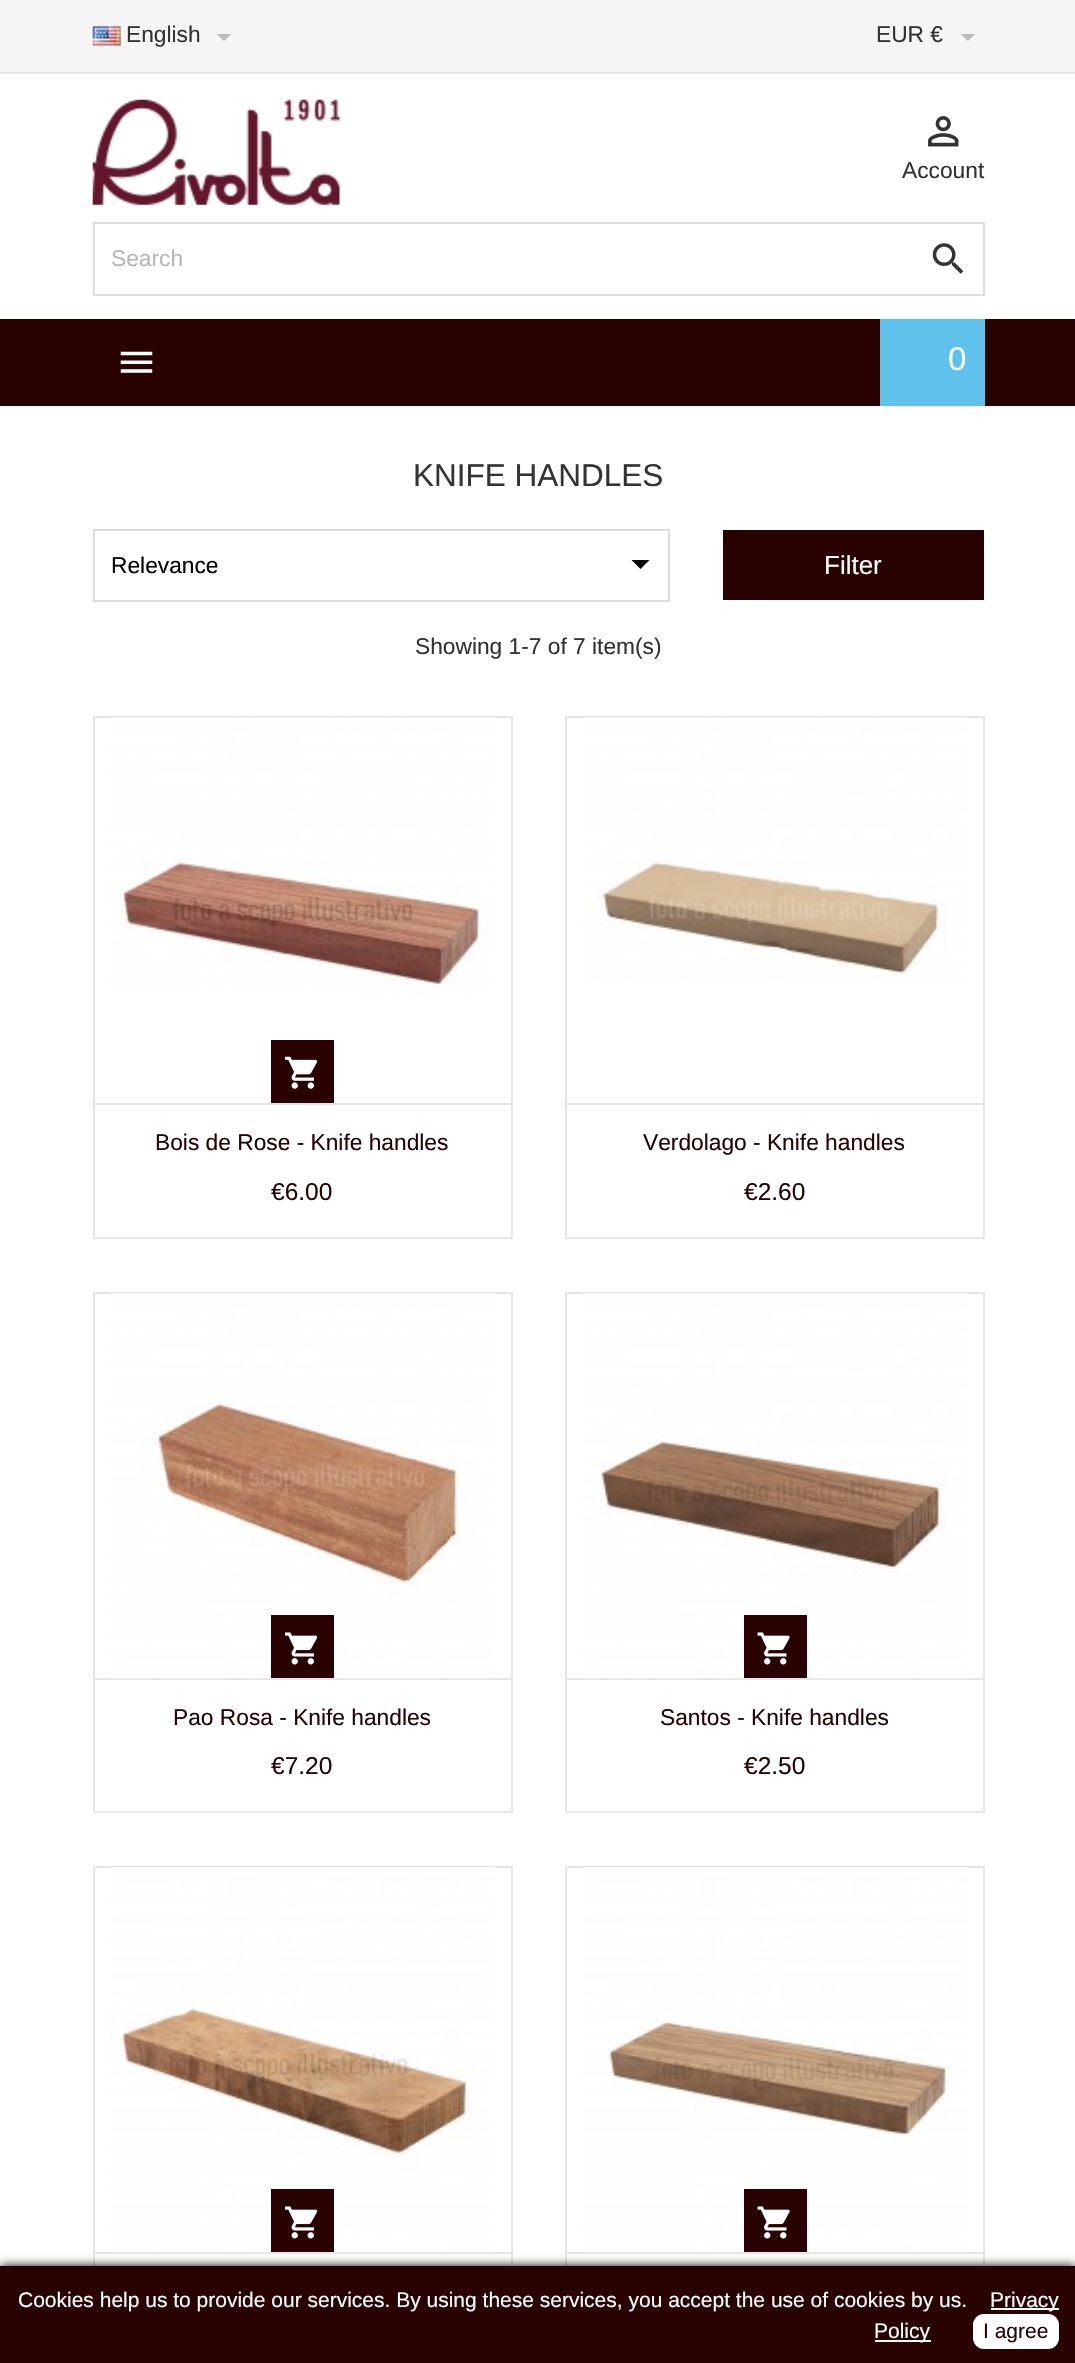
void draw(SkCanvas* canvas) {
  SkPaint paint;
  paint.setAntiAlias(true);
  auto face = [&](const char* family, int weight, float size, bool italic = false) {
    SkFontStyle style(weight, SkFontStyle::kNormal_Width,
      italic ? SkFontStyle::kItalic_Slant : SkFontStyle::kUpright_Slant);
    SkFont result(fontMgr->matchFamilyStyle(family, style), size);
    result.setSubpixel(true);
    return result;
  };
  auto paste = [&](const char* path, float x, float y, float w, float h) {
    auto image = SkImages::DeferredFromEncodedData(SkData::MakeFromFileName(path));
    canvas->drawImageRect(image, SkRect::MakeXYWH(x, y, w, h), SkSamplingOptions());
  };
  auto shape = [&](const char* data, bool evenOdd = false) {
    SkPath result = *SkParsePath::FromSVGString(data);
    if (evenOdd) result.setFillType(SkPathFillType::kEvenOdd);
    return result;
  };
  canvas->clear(0xffffffff);
  paint.setColor(0xfff5f5f5);
  canvas->drawRect(SkRect::MakeXYWH(0, 0, 1075, 72), paint);
  paint.setColor(0xffe5e5e5);
  canvas->drawRect(SkRect::MakeXYWH(0, 72, 1075, 2), paint);
  paste("img/1.png", 92, 26, 29, 20);
  paint.setColor(0xffbbbbbb);
  canvas->drawPath(shape("M216.5 34H231.5L224 41Z"), paint);
  canvas->drawPath(shape("M960.5 34H975L968 41Z"), paint);
  paint.setColor(0xff280302);
  canvas->drawRect(SkRect::MakeXYWH(0, 319, 1075, 87), paint);
  paste("img/2.png", 92, 99, 248, 106);
  paste("img/3.png", 928, 116, 31, 31);
  paint.setStroke(true);
  paint.setStrokeWidth(2);
  paint.setColor(0xffdddddd);
  canvas->drawRect(SkRect::MakeXYWH(94, 223, 890, 72), paint);
  paste("img/4.png", 932, 243, 32, 31);
  paste("img/5.png", 120, 351, 33, 22);
  paint.setStroke(false);
  paint.setColor(0xff5ec2ec);
  canvas->drawRect(SkRect::MakeXYWH(880, 319, 105, 87), paint);
  paint.setStroke(true);
  paint.setColor(0xffdddddd);
  canvas->drawRect(SkRect::MakeXYWH(94, 530, 575, 71), paint);
  paint.setStroke(false);
  paint.setColor(0xff000000);
  canvas->drawPath(shape("M631.5 560H649.5L640.5 569Z"), paint);
  paint.setColor(0xff280302);
  canvas->drawRect(SkRect::MakeXYWH(723, 530, 261, 70), paint);
  paint.setStroke(true);
  paint.setColor(0xffe5e5e5);
  canvas->drawRect(SkRect::MakeXYWH(94, 717, 418, 521), paint);
  paste("img/6.png", 110, 717, 385, 280);
  paint.setStroke(false);
  paint.setColor(0xff280302);
  canvas->drawRect(SkRect::MakeXYWH(271, 1040, 63, 63), paint);
  paste("img/7.png", 285, 1056, 33, 33);
  paint.setColor(0xffe5e5e5);
  canvas->drawRect(SkRect::MakeXYWH(95, 1103, 416, 2), paint);
  paint.setStroke(true);
  canvas->drawRect(SkRect::MakeXYWH(566, 717, 418, 521), paint);
  paste("img/8.png", 583, 717, 385, 264);
  paint.setStroke(false);
  canvas->drawRect(SkRect::MakeXYWH(567, 1103, 417, 2), paint);
  paint.setStroke(true);
  canvas->drawRect(SkRect::MakeXYWH(94, 1293, 418, 519), paint);
  paint.setStroke(false);
  canvas->drawRect(SkRect::MakeXYWH(95, 1678, 416, 2), paint);
  paste("img/9.png", 110, 1293, 386, 386);
  paint.setColor(0xff280302);
  canvas->drawRect(SkRect::MakeXYWH(271, 1615, 63, 63), paint);
  paste("img/10.png", 285, 1632, 33, 33);
  paint.setStroke(true);
  paint.setColor(0xffe5e5e5);
  canvas->drawRect(SkRect::MakeXYWH(566, 1293, 418, 519), paint);
  paint.setStroke(false);
  canvas->drawRect(SkRect::MakeXYWH(567, 1678, 417, 2), paint);
  paste("img/11.png", 582, 1293, 386, 386);
  paint.setColor(0xff280302);
  canvas->drawRect(SkRect::MakeXYWH(744, 1615, 63, 63), paint);
  paste("img/12.png", 757, 1632, 33, 33);
  paint.setStroke(true);
  paint.setColor(0xffe5e5e5);
  canvas->drawRect(SkRect::MakeXYWH(94, 1867, 418, 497), paint);
  paint.setStroke(false);
  canvas->drawRect(SkRect::MakeXYWH(95, 2252, 416, 2), paint);
  paste("img/13.png", 110, 1867, 386, 386);
  paint.setColor(0xff280302);
  canvas->drawRect(SkRect::MakeXYWH(271, 2189, 63, 63), paint);
  paste("img/10.png", 285, 2206, 33, 33);
  paint.setStroke(true);
  paint.setColor(0xffe5e5e5);
  canvas->drawRect(SkRect::MakeXYWH(566, 1867, 418, 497), paint);
  paint.setStroke(false);
  canvas->drawRect(SkRect::MakeXYWH(567, 2252, 417, 2), paint);
  paste("img/14.png", 582, 1867, 386, 386);
  paint.setColor(0xff280302);
  canvas->drawRect(SkRect::MakeXYWH(744, 2189, 63, 63), paint);
  paste("img/12.png", 757, 2206, 33, 33);
  paint.setColor(0xff000000);
  paint.setMaskFilter(SkMaskFilter::MakeBlur(kNormal_SkBlurStyle, 5));
  canvas->drawRect(SkRect::MakeXYWH(0, 2266, 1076, 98), paint);
  paint.setMaskFilter(nullptr);
  {
    const struct { float x, y, w, h; SkColor color; } items[] = {
      {0, 2266, 1075, 97, 0xff280302},
      {991, 2308, 68, 2, 0xffffffff},
      {875, 2340, 56, 2, 0xffffffff},
    };
    for (auto [x, y, w, h, color] : items) {
      paint.setColor(color);
      canvas->drawRect(SkRect::MakeXYWH(x, y, w, h), paint);
    }
  }
  canvas->drawRoundRect(SkRect::MakeXYWH(973, 2314, 86, 35), 11, 11, paint);
  auto f0 = face("Arimo", 400, 22.75f);
  paint.setColor(0xff333333);
  {
    const struct { const char* s; float x, y; } items[] = {
      {"English", 126, 42},
      {"EUR €", 876, 42},
      {"Account", 902, 178},
    };
    for (auto [s, x, y] : items) {
      canvas->drawString(s, x, y, f0, paint);
    }
  }
  paint.setColor(0xffb7b7b7);
  canvas->drawString("Search", 111, 266, f0, paint);
  auto f1 = face("Arimo", 400, 33);
  paint.setColor(0xffffffff);
  canvas->drawString("0", 948, 370, f1, paint);
  auto f2 = face("Arimo", 400, 31.5f);
  paint.setColor(0xff333333);
  canvas->drawString("KNIFE HANDLES", 413, 486, f2, paint);
  paint.setColor(0xff000000);
  canvas->drawString("Relevance", 111, 573, f0, paint);
  auto f3 = face("Arimo", 400, 26);
  paint.setColor(0xffffffff);
  canvas->drawString("Filter", 824, 574, f3, paint);
  paint.setColor(0xff333333);
  canvas->drawString("Showing 1-7 of 7 item(s)", 415, 654, f0, paint);
  paint.setColor(0xff280302);
  canvas->drawString("Bois de Rose - Knife handles", 155, 1150, f0, paint);
  auto f4 = face("Arimo", 400, 24.5f);
  canvas->drawString("€6.00", 271, 1200, f4, paint);
  canvas->drawString("Verdolago - Knife handles", 643, 1150, f0, paint);
  canvas->drawString("€2.60", 744, 1200, f4, paint);
  canvas->drawString("Pao Rosa - Knife handles", 173, 1725, f0, paint);
  canvas->drawString("€7.20", 271, 1774, f4, paint);
  canvas->drawString("Santos - Knife handles", 660, 1725, f0, paint);
  canvas->drawString("€2.50", 744, 1774, f4, paint);
  auto f5 = face("Arimo", 400, 21);
  paint.setColor(0xffffffff);
  {
    const struct { const char* s; float x, y; } items[] = {
      {"Cookies help us to provide our services. By using these services, you accept the use of cookies by us.", 18, 2307},
      {"Privacy", 990, 2307},
      {"Policy", 874, 2338},
    };
    for (auto [s, x, y] : items) {
      canvas->drawString(s, x, y, f5, paint);
    }
  }
  auto f6 = face("Liberation Sans", 400, 21);
  paint.setColor(0xff280302);
  canvas->drawString("I agree", 983, 2338, f6, paint);
}
